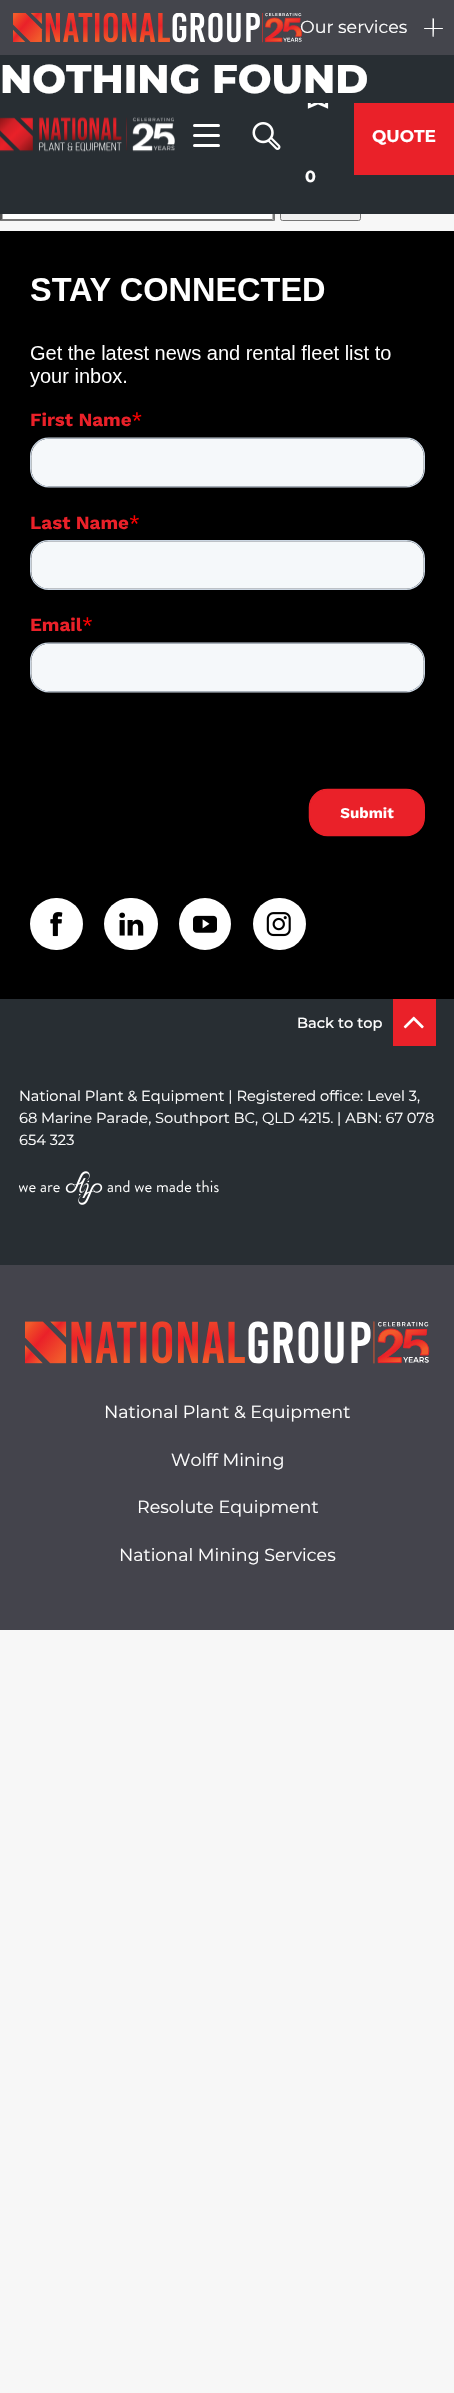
void draw(SkCanvas* canvas) {
  SkPaint paint;
  paint.setAntiAlias(true);
  auto face = [&](const char* family, int weight, float size, bool italic = false) {
    SkFontStyle style(weight, SkFontStyle::kNormal_Width,
      italic ? SkFontStyle::kItalic_Slant : SkFontStyle::kUpright_Slant);
    SkFont result(fontMgr->matchFamilyStyle(family, style), size);
    result.setSubpixel(true);
    return result;
  };
  auto paste = [&](const char* path, float x, float y, float w, float h) {
    auto image = SkImages::DeferredFromEncodedData(SkData::MakeFromFileName(path));
    canvas->drawImageRect(image, SkRect::MakeXYWH(x, y, w, h), SkSamplingOptions());
  };
  auto shape = [&](const char* data, bool evenOdd = false) {
    SkPath result = *SkParsePath::FromSVGString(data);
    if (evenOdd) result.setFillType(SkPathFillType::kEvenOdd);
    return result;
  };
  canvas->clear(0xfff7f7f7);
  paint.setColor(0xff44454c);
  canvas->drawRect(SkRect::MakeXYWH(0, 0, 454, 55), paint);
  paste("img/1.png", 13, 13, 290, 30);
  paint.setColor(0xffffffff);
  canvas->drawPath(shape("M434 19C434 21 434 36.5 433.5 37L432.5 36.5V18.5C433 18 434 18 434 19Z"), paint);
  canvas->drawRoundRect(SkRect::MakeXYWH(424, 28, 19, 1), 0.5f, 0.5f, paint);
  canvas->drawRect(SkRect::MakeXYWH(0, 214, 275, 7), paint);
  paint.setColor(0xff767676);
  canvas->drawPath(shape("M275 187.5V221L272.5 219V190Z"), paint);
  canvas->drawPath(shape("M275 221H0L2 219H272Z"), paint);
  paint.setColor(0xff4f4f4f);
  canvas->drawPath(shape("M0 221V187.5L2.5 190V219Z"), paint);
  paint.setColor(0xffefefef);
  canvas->drawRoundRect(SkRect::MakeXYWH(280.5f, 188.5f, 80, 32), 2, 2, paint);
  paint.setStroke(true);
  paint.setStrokeWidth(1);
  paint.setColor(0xff767676);
  canvas->drawRoundRect(SkRect::MakeXYWH(280.5f, 188.5f, 80, 32), 2, 2, paint);
  paint.setStroke(false);
  paint.setColor(0xff282e33);
  canvas->drawRect(SkRect::MakeXYWH(0, 55, 454, 159), paint);
  paste("img/2.png", 0, 117, 175, 35);
  paint.setColor(0xffffffff);
  canvas->drawRoundRect(SkRect::MakeXYWH(193, 134, 27, 3), 1.5f, 1.5f, paint);
  canvas->drawRoundRect(SkRect::MakeXYWH(193, 124, 27, 3), 1.5f, 1.5f, paint);
  canvas->drawRoundRect(SkRect::MakeXYWH(193, 144, 27, 3), 1.5f, 1.5f, paint);
  paste("img/3.png", 252, 122, 29, 28);
  paint.setColor(0xffea2129);
  canvas->drawRect(SkRect::MakeXYWH(354, 103, 100, 72), paint);
  paste("img/4.png", 307, 103, 22, 6);
  paint.setColor(0xff282e33);
  canvas->drawRect(SkRect::MakeXYWH(0, 999, 454, 266), paint);
  paint.setColor(0xff000000);
  canvas->drawRect(SkRect::MakeXYWH(0, 231, 454, 768), paint);
  paste("img/5.png", 30, 278, 395, 559);
  paint.setColor(0xffffffff);
  canvas->drawRoundRect(SkRect::MakeXYWH(30, 898, 53, 52), 26, 26, paint);
  paste("img/6.png", 50, 912, 13, 25);
  canvas->drawRoundRect(SkRect::MakeXYWH(104, 898, 54, 52), 26, 26, paint);
  paste("img/7.png", 119, 912, 25, 24);
  canvas->drawCircle(205, 924, 26, paint);
  paste("img/8.png", 193, 915, 24, 18);
  canvas->drawRoundRect(SkRect::MakeXYWH(253, 898, 53, 52), 26, 26, paint);
  paste("img/9.png", 266, 912, 25, 25);
  paint.setColor(0xffea2129);
  canvas->drawRect(SkRect::MakeXYWH(393, 999, 43, 47), paint);
  paste("img/10.png", 403, 1016, 21, 13);
  paste("img/11.png", 19, 1171, 200, 34);
  paint.setColor(0xff44444c);
  canvas->drawRect(SkRect::MakeXYWH(0, 1265, 454, 365), paint);
  paste("img/12.png", 25, 1321, 405, 43);
  auto f0 = face("Montserrat", 400, 17.5f);
  paint.setColor(0xffffffff);
  canvas->drawString("Our services", 300, 33, f0, paint);
  auto f1 = face("Montserrat", 800, 40);
  canvas->drawString("NOTHING FOUND", 0, 93, f1, paint);
  auto f2 = face("Montserrat", 700, 17);
  canvas->drawString("QUOTE", 372, 142, f2, paint);
  auto f3 = face("Montserrat", 700, 16);
  canvas->drawString("0", 305, 182, f3, paint);
  auto f4 = face("Montserrat", 500, 14.6f);
  canvas->drawString("Back to top", 297, 1028, f4, paint);
  auto f5 = face("Montserrat", 400, 14.6f);
  {
    const struct { const char* s; float x, y; } items[] = {
      {"National Plant & Equipment | Registered office: Level 3,", 19, 1101},
      {"68 Marine Parade, Southport BC, QLD 4215. | ABN: 67 078", 19, 1123},
      {"654 323", 19, 1145},
    };
    for (auto [s, x, y] : items) {
      canvas->drawString(s, x, y, f5, paint);
    }
  }
  {
    const struct { const char* s; float x, y; } items[] = {
      {"National Plant & Equipment", 104, 1418},
      {"Wolff Mining", 171, 1466},
      {"Resolute Equipment", 137, 1513},
      {"National Mining Services", 119, 1561},
    };
    for (auto [s, x, y] : items) {
      canvas->drawString(s, x, y, f0, paint);
    }
  }
}
